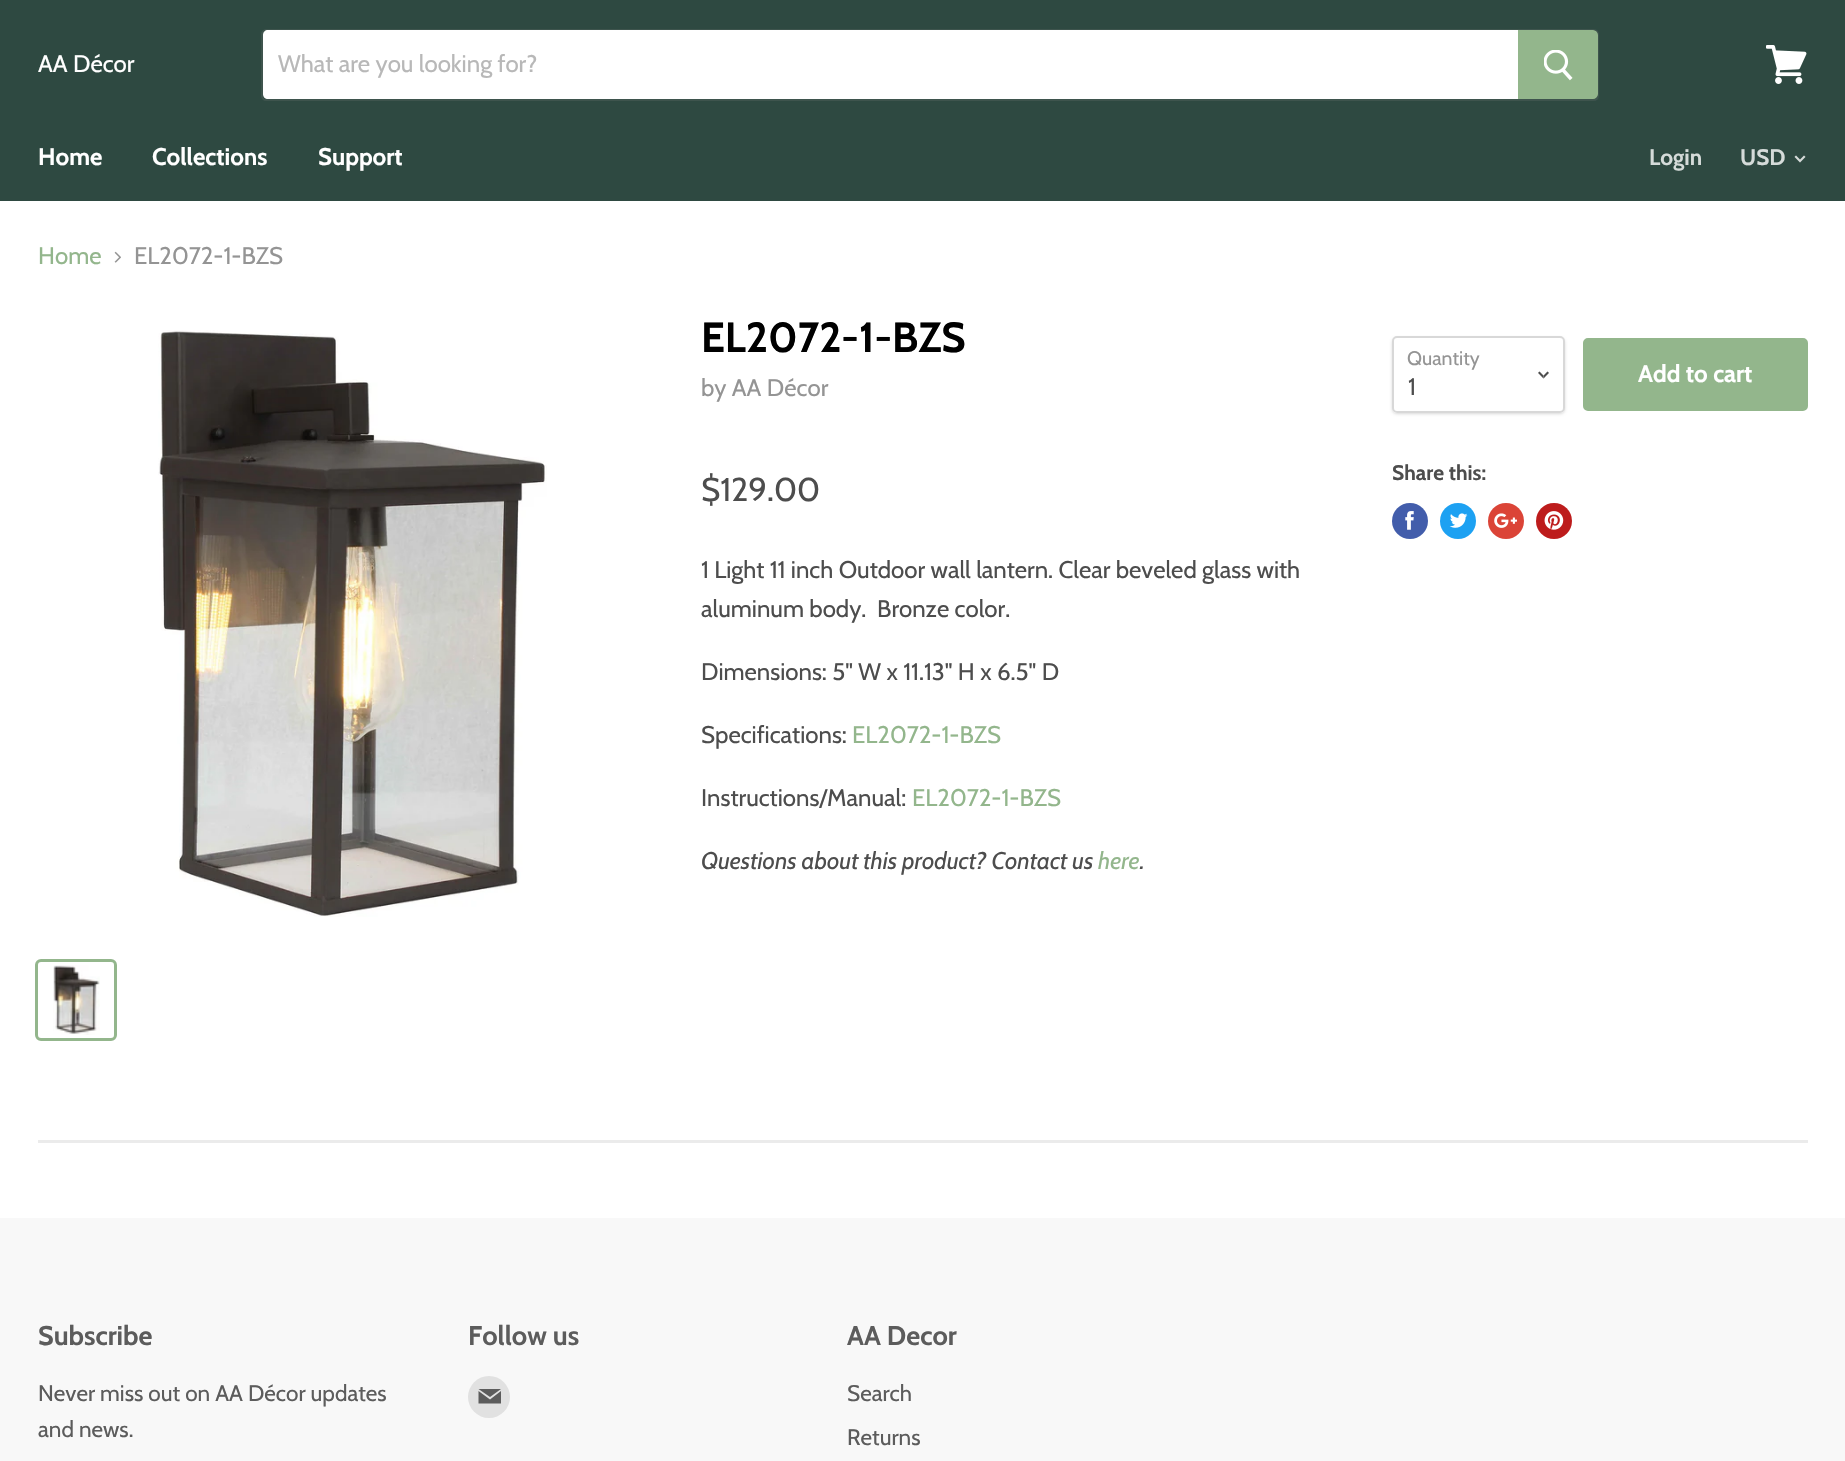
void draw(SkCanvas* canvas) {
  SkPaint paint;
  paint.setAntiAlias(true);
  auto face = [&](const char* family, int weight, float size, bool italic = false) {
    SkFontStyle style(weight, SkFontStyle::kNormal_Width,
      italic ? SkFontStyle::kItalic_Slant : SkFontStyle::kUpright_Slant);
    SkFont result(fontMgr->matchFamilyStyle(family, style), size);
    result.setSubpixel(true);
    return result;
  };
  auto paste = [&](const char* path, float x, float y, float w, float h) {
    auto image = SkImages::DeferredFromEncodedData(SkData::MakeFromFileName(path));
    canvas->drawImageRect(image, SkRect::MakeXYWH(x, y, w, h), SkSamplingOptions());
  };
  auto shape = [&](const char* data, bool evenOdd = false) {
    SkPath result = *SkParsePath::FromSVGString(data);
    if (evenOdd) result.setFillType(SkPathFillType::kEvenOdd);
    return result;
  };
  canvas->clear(0xffffffff);
  paint.setColor(0xff2e4941);
  canvas->drawRect(SkRect::MakeXYWH(0, 0, 1845, 201), paint);
  paint.setStroke(true);
  paint.setStrokeWidth(2);
  paint.setColor(0x337f7f7f);
  canvas->drawPath(shape("M266 30H1593C1596 30 1598 32 1598 35V95C1598 98 1596 100 1593 100H266C264 100 262 98 262 96V34C262 32 264 30 266 30Z"), paint);
  paint.setStroke(false);
  paint.setColor(0xffffffff);
  canvas->drawPath(shape("M268 30H1518V99H268C265 99 263 97 263 94V35C263 32 265 30 268 30Z"), paint);
  paint.setColor(0xff93b68c);
  canvas->drawPath(shape("M1519 31H1593C1595 31 1597 33 1597 35V94C1597 96 1595 98 1593 98H1519Z"), paint);
  paint.setStroke(true);
  canvas->drawPath(shape("M1519 31H1593C1595 31 1597 33 1597 35V94C1597 96 1595 98 1593 98H1519Z"), paint);
  paste("img/1.png", 1544, 50, 29, 31);
  paste("img/2.png", 1766, 45, 41, 39);
  paste("img/3.png", 1794, 155, 12, 8);
  paste("img/4.png", 114, 251, 7, 12);
  paste("img/5.png", 158, 330, 389, 587);
  paint.setStrokeWidth(3);
  canvas->drawRoundRect(SkRect::MakeXYWH(36.5f, 960.5f, 79, 79), 4.5f, 4.5f, paint);
  paste("img/6.png", 53, 965, 47, 70);
  canvas->save();
  canvas->clipPath(shape("M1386 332H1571V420H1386ZM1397 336H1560C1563 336 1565 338 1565 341V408C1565 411 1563 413 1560 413H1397C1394 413 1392 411 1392 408V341C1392 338 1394 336 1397 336Z", true), true);
  paint.setStroke(false);
  paint.setColor(0x26000000);
  paint.setMaskFilter(SkMaskFilter::MakeBlur(kNormal_SkBlurStyle, 1.5f));
  canvas->drawRoundRect(SkRect::MakeXYWH(1392, 338, 173, 76), 5, 5, paint);
  paint.setMaskFilter(nullptr);
  canvas->restore();
  paint.setStroke(true);
  paint.setStrokeWidth(2);
  paint.setColor(0x4d7f7f7f);
  canvas->drawRoundRect(SkRect::MakeXYWH(1393, 337, 171, 75), 4, 4, paint);
  paste("img/7.png", 1538, 371, 11, 8);
  paint.setStroke(false);
  paint.setColor(0xff93b68c);
  canvas->drawRoundRect(SkRect::MakeXYWH(1584, 339, 223, 71), 4, 4, paint);
  paint.setStroke(true);
  canvas->drawRoundRect(SkRect::MakeXYWH(1584, 339, 223, 71), 4, 4, paint);
  paint.setStroke(false);
  paint.setColor(0xff425dab);
  canvas->drawCircle(1410, 521, 18, paint);
  paste("img/8.png", 1405, 511, 9, 19);
  paint.setColor(0xff1da1f2);
  canvas->drawCircle(1458, 521, 18, paint);
  paste("img/9.png", 1449, 513, 19, 15);
  paint.setColor(0xffdb4437);
  canvas->drawCircle(1506, 521, 18, paint);
  paste("img/10.png", 1494, 513, 23, 15);
  paint.setColor(0xffbd1c1c);
  canvas->drawCircle(1554, 521, 18, paint);
  paste("img/11.png", 1544, 511, 20, 19);
  paint.setColor(0xffebebeb);
  canvas->drawRect(SkRect::MakeXYWH(38, 1140, 1770, 3), paint);
  paint.setColor(0xfff8f8f8);
  canvas->drawRect(SkRect::MakeXYWH(0, 1218, 1845, 243), paint);
  paint.setColor(0xffe1e1e1);
  canvas->drawCircle(489, 1397, 21, paint);
  paint.setColor(0xff5c5c5c);
  canvas->drawPath(shape("M501 1389H478.5L490 1397ZM490 1399.5L478.5 1391V1403.5H501V1391Z", true), paint);
  auto f0 = face("Cabin", 400, 24);
  paint.setColor(0xffffffff);
  canvas->drawString("AA Décor", 38, 72, f0, paint);
  paint.setColor(0xffb8b8b8);
  canvas->drawString("What are you looking for?", 278, 72, f0, paint);
  auto f1 = face("Cabin", 700, 24);
  paint.setColor(0xffffffff);
  {
    const struct { const char* s; float x, y; } items[] = {
      {"Home", 38, 165},
      {"Collections", 152, 165},
      {"Support", 318, 165},
    };
    for (auto [s, x, y] : items) {
      canvas->drawString(s, x, y, f1, paint);
    }
  }
  auto f2 = face("Cabin", 700, 22.5f);
  paint.setColor(0xffd5dbd9);
  canvas->drawString("Login", 1649, 165, f2, paint);
  canvas->drawString("USD", 1740, 165, f2, paint);
  paint.setColor(0xff93b68c);
  canvas->drawString("Home", 38, 264, f0, paint);
  paint.setColor(0xff949494);
  canvas->drawString("EL2072-1-BZS", 134, 264, f0, paint);
  auto f3 = face("Cabin", 700, 42);
  paint.setColor(0xff000000);
  canvas->drawString("EL2072-1-BZS", 701, 352, f3, paint);
  paint.setColor(0xff949494);
  canvas->drawString("by AA Décor", 701, 396, f0, paint);
  auto f4 = face("Cabin", 400, 33);
  paint.setColor(0xff4d4d4d);
  canvas->drawString("$129.00", 701, 501, f4, paint);
  {
    const struct { const char* s; float x, y; } items[] = {
      {"1 Light 11 inch Outdoor wall lantern. Clear beveled glass with", 701, 578},
      {"aluminum body.  Bronze color.", 701, 617},
      {"Dimensions: 5\" W x 11.13\" H x 6.5\" D", 701, 680},
      {"Specifications:", 701, 743},
    };
    for (auto [s, x, y] : items) {
      canvas->drawString(s, x, y, f0, paint);
    }
  }
  paint.setColor(0xff93b68c);
  canvas->drawString("EL2072-1-BZS", 852, 743, f0, paint);
  paint.setColor(0xff4d4d4d);
  canvas->drawString("Instructions/Manual:", 701, 806, f0, paint);
  paint.setColor(0xff93b68c);
  canvas->drawString("EL2072-1-BZS", 912, 806, f0, paint);
  auto f5 = face("Cabin", 400, 24, true);
  paint.setColor(0xff4d4d4d);
  canvas->drawString("Questions about this product? Contact us", 701, 869, f5, paint);
  paint.setColor(0xff93b68c);
  canvas->drawString("here", 1098, 869, f5, paint);
  paint.setColor(0xff4d4d4d);
  canvas->drawString(".", 1140, 869, f5, paint);
  auto f6 = face("Cabin", 400, 19.5f);
  paint.setColor(0xff949494);
  canvas->drawString("Quantity", 1407, 365, f6, paint);
  paint.setColor(0xff4d4d4d);
  canvas->drawString("1", 1408, 395, f0, paint);
  paint.setColor(0xffffffff);
  canvas->drawString("Add to cart", 1638, 382, f1, paint);
  auto f7 = face("Cabin", 700, 21);
  paint.setColor(0xff4d4d4d);
  canvas->drawString("Share this:", 1392, 480, f7, paint);
  auto f8 = face("Cabin", 700, 27);
  paint.setColor(0xff5c5c5c);
  canvas->drawString("Subscribe", 38, 1345, f8, paint);
  auto f9 = face("Cabin", 400, 22.5f);
  canvas->drawString("Never miss out on AA Décor updates", 38, 1401, f9, paint);
  canvas->drawString("and news.", 38, 1437, f9, paint);
  canvas->drawString("Follow us", 468, 1345, f8, paint);
  canvas->drawString("AA Decor", 847, 1345, f8, paint);
  canvas->drawString("Search", 847, 1401, f9, paint);
  canvas->drawString("Returns", 847, 1445, f9, paint);
}
